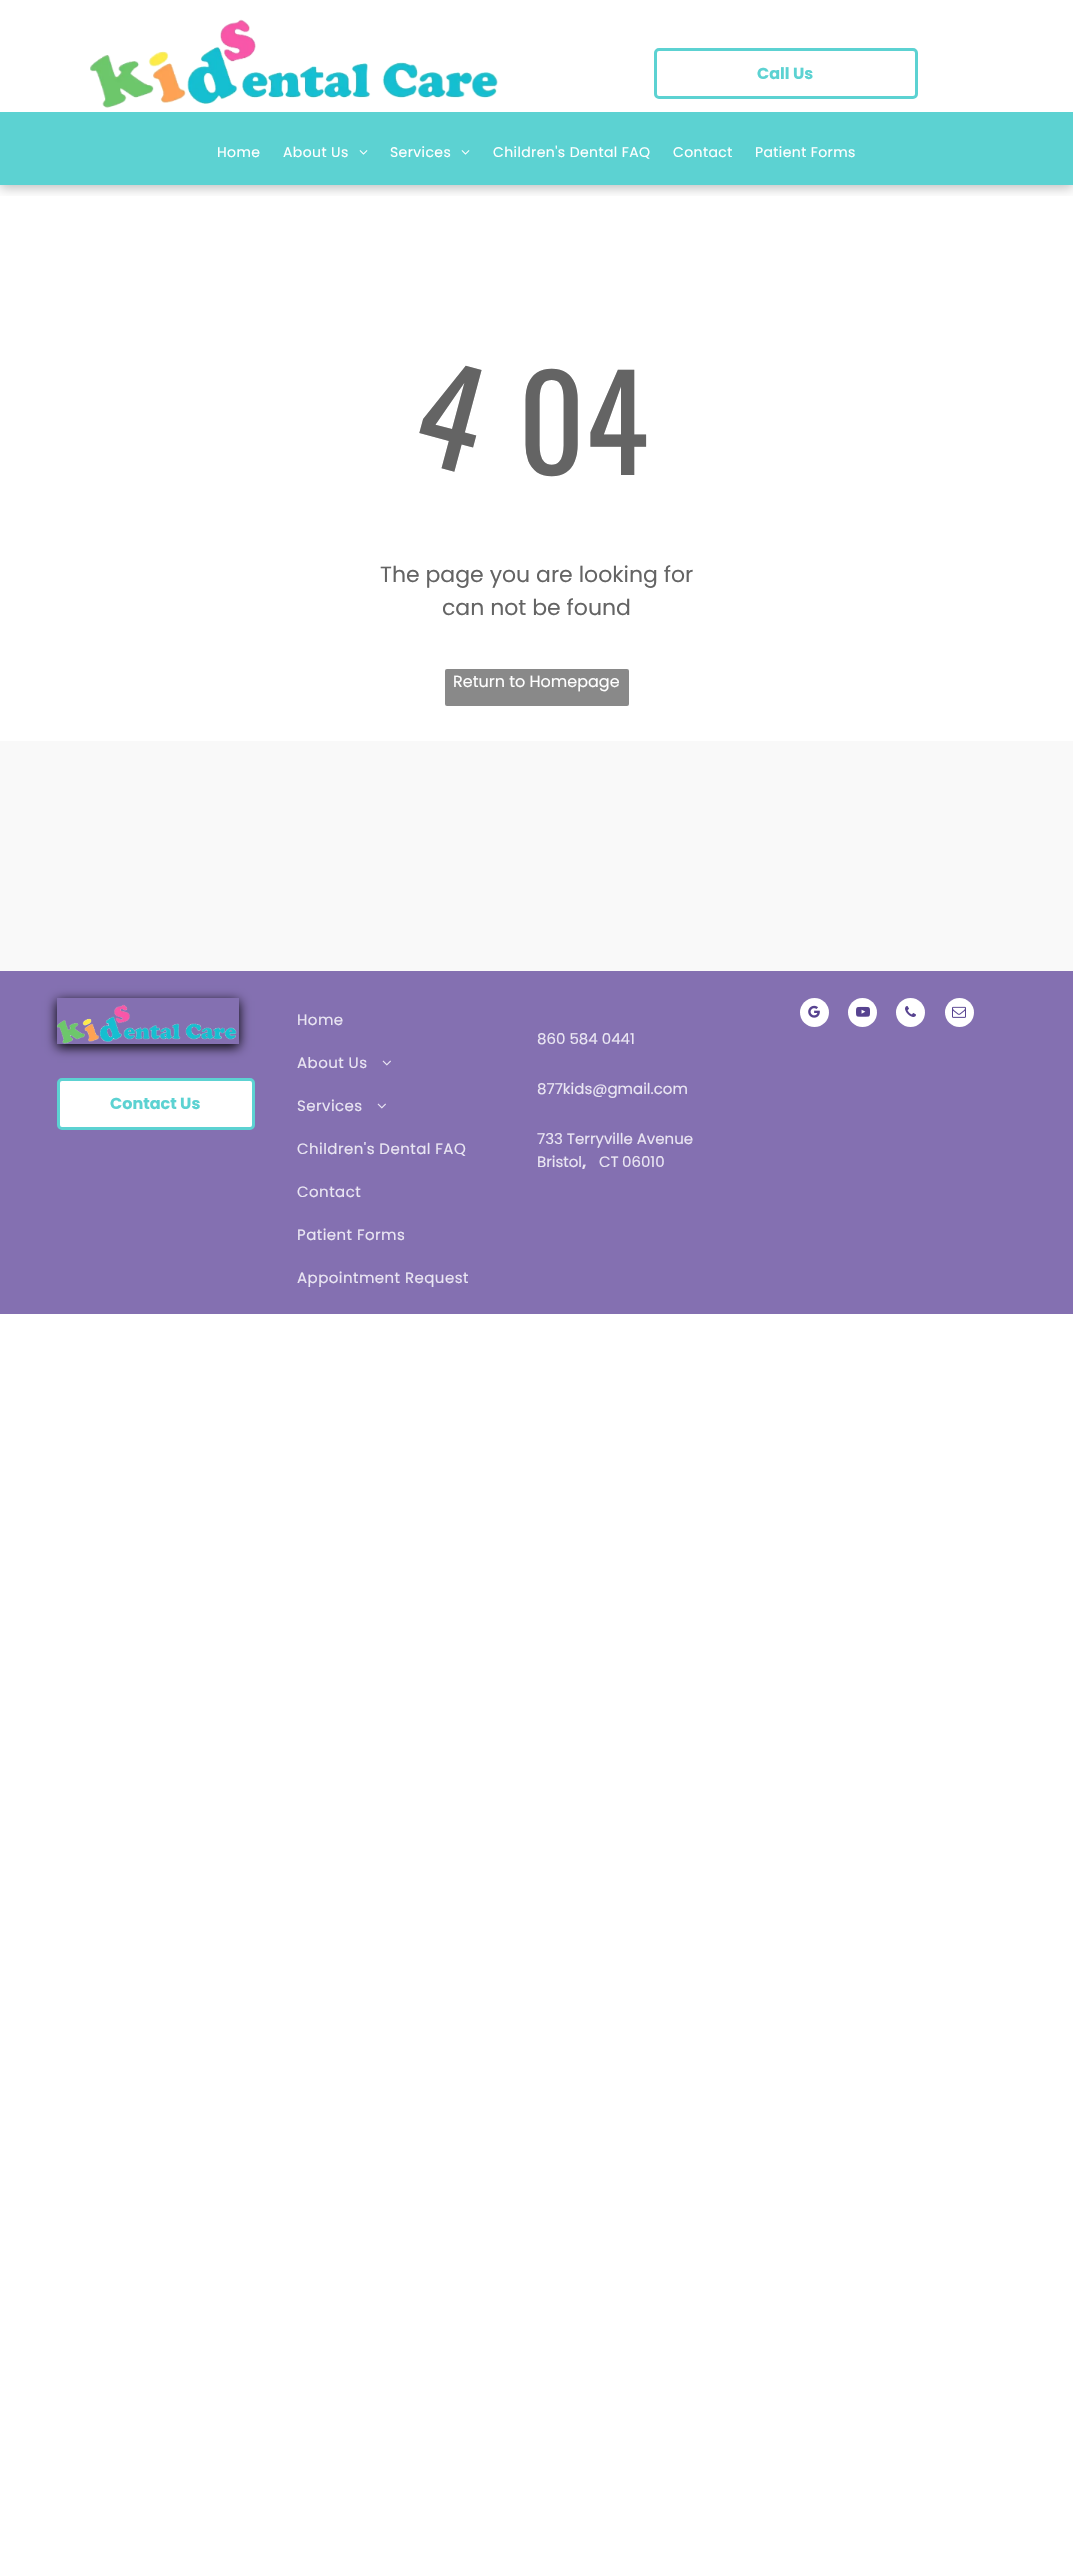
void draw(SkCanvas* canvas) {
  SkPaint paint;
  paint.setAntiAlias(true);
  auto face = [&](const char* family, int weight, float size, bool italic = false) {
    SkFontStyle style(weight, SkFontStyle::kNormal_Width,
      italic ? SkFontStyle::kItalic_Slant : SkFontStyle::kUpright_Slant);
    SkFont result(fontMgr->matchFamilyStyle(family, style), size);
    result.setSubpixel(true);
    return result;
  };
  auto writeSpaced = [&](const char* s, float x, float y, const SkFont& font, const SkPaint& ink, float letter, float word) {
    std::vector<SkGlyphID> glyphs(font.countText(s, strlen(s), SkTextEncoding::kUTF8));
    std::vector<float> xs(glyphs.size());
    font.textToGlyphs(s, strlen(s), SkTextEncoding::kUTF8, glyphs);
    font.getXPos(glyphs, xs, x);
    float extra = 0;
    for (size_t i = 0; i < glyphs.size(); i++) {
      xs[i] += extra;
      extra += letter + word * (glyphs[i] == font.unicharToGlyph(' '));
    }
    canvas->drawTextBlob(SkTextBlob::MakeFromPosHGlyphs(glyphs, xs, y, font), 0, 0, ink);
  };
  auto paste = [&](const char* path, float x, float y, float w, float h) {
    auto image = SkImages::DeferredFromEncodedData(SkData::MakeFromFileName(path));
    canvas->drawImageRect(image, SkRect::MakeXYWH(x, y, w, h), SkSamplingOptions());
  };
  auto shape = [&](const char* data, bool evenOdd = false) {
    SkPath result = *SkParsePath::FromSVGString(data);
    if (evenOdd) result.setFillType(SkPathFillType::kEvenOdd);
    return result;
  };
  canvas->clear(0xffffffff);
  canvas->save();
  canvas->clipRect(SkRect::MakeXYWH(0, 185, 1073, 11));
  paint.setColor(0x40000000);
  paint.setMaskFilter(SkMaskFilter::MakeBlur(kNormal_SkBlurStyle, 5.5f));
  canvas->drawRect(SkRect::MakeXYWH(0, 3, 1073, 185), paint);
  paint.setMaskFilter(nullptr);
  canvas->restore();
  paste("img/1.png", 90, 19, 408, 89);
  paint.setStroke(true);
  paint.setStrokeWidth(3);
  paint.setColor(0xff5cd2d2);
  canvas->drawRoundRect(SkRect::MakeXYWH(655.5f, 49.5f, 261, 48), 3.5f, 3.5f, paint);
  paint.setStroke(false);
  canvas->drawRect(SkRect::MakeXYWH(0, 112, 1073, 73), paint);
  paste("img/2.png", 359, 150, 9, 5);
  paste("img/2.png", 461, 150, 9, 5);
  paint.setColor(0xff898989);
  canvas->drawRoundRect(SkRect::MakeXYWH(445, 669, 184, 37), 2, 2, paint);
  paint.setColor(0xfff9f9f9);
  canvas->drawRect(SkRect::MakeXYWH(0, 741, 1073, 230), paint);
  paint.setColor(0xff8470b1);
  canvas->drawRect(SkRect::MakeXYWH(0, 971, 1073, 343), paint);
  canvas->save();
  canvas->clipPath(shape("M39 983H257V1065H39ZM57 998H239V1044H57Z", true), true);
  paint.setColor(0xff000000);
  paint.setMaskFilter(SkMaskFilter::MakeBlur(kNormal_SkBlurStyle, 5.5f));
  canvas->drawRect(SkRect::MakeXYWH(57, 1001, 182, 46), paint);
  paint.setMaskFilter(nullptr);
  canvas->restore();
  paste("img/3.png", 57, 1004, 180, 40);
  paint.setColor(0xffffffff);
  canvas->drawRoundRect(SkRect::MakeXYWH(58.5f, 1079.5f, 195, 49), 3.5f, 3.5f, paint);
  paint.setStroke(true);
  paint.setColor(0xff5cd2d2);
  canvas->drawRoundRect(SkRect::MakeXYWH(58.5f, 1079.5f, 195, 49), 3.5f, 3.5f, paint);
  paste("img/4.png", 382, 1060, 9, 6);
  paste("img/4.png", 377, 1103, 9, 6);
  paint.setStroke(false);
  paint.setColor(0xffffffff);
  canvas->drawCircle(814.5f, 1012.5f, 14.5f, paint);
  paste("img/5.png", 808, 1005, 12, 13);
  canvas->drawCircle(862.5f, 1012.5f, 14.5f, paint);
  paste("img/6.png", 856, 1006, 14, 11);
  canvas->drawCircle(910.5f, 1012.5f, 14.5f, paint);
  paste("img/7.png", 905, 1006, 11, 11);
  canvas->drawCircle(959.5f, 1012.5f, 14.5f, paint);
  paste("img/8.png", 952, 1006, 14, 12);
  auto f0 = face("Poppins", 700, 16);
  paint.setColor(0xff5cd2d2);
  canvas->drawString("Call Us", 757, 79, f0, paint);
  auto f1 = face("Poppins", 400, 14);
  paint.setColor(0xffffffff);
  {
    const struct { const char* s; float x, y; } items[] = {
      {"Home", 217, 157},
      {"About Us", 283, 157},
      {"Services", 390, 157},
      {"Children's Dental FAQ", 493, 157},
      {"Contact", 673, 157},
      {"Patient Forms", 755, 157},
    };
    for (auto [s, x, y] : items) {
      writeSpaced(s, x, y, f1, paint, 0.4f, 0);
    }
  }
  auto f2 = face("Oswald", 400, 130);
  paint.setColor(0xff646464);
  canvas->save();
  canvas->rotate(15, 407, 459);
  canvas->drawString("4", 407, 459, f2, paint);
  canvas->restore();
  canvas->drawString("04", 518, 475, f2, paint);
  auto f3 = face("Poppins", 400, 22);
  canvas->drawString("The page you are looking for", 380, 582, f3, paint);
  canvas->drawString("can not be found", 442, 615, f3, paint);
  auto f4 = face("Poppins", 400, 16);
  paint.setColor(0xffffffff);
  canvas->drawString("Return to Homepage", 453, 687, f4, paint);
  paint.setColor(0xff5cd2d2);
  canvas->drawString("Contact Us", 110, 1109, f0, paint);
  auto f5 = face("Poppins", 400, 15);
  paint.setColor(0xffeae6f3);
  {
    const struct { const char* s; float x, y; } items[] = {
      {"Home", 297, 1025},
      {"About Us", 297, 1068},
      {"Services", 297, 1111},
      {"Children's Dental FAQ", 297, 1154},
      {"Contact", 297, 1197},
      {"Patient Forms", 297, 1240},
      {"Appointment Request", 297, 1283},
    };
    for (auto [s, x, y] : items) {
      writeSpaced(s, x, y, f5, paint, 0.45f, 0);
    }
  }
  {
    const struct { const char* s; float x, y; } items[] = {
      {"860 584 0441", 537, 1044},
      {"877kids@gmail.com", 537, 1094},
      {"733 Terryville Avenue", 537, 1144},
      {"Bristol", 537, 1167},
    };
    for (auto [s, x, y] : items) {
      canvas->drawString(s, x, y, f5, paint);
    }
  }
  auto f6 = face("Poppins", 700, 15);
  canvas->drawString(",", 582, 1167, f6, paint);
  canvas->drawString("CT", 599, 1167, f5, paint);
  canvas->drawString("06010", 622, 1167, f5, paint);
}
